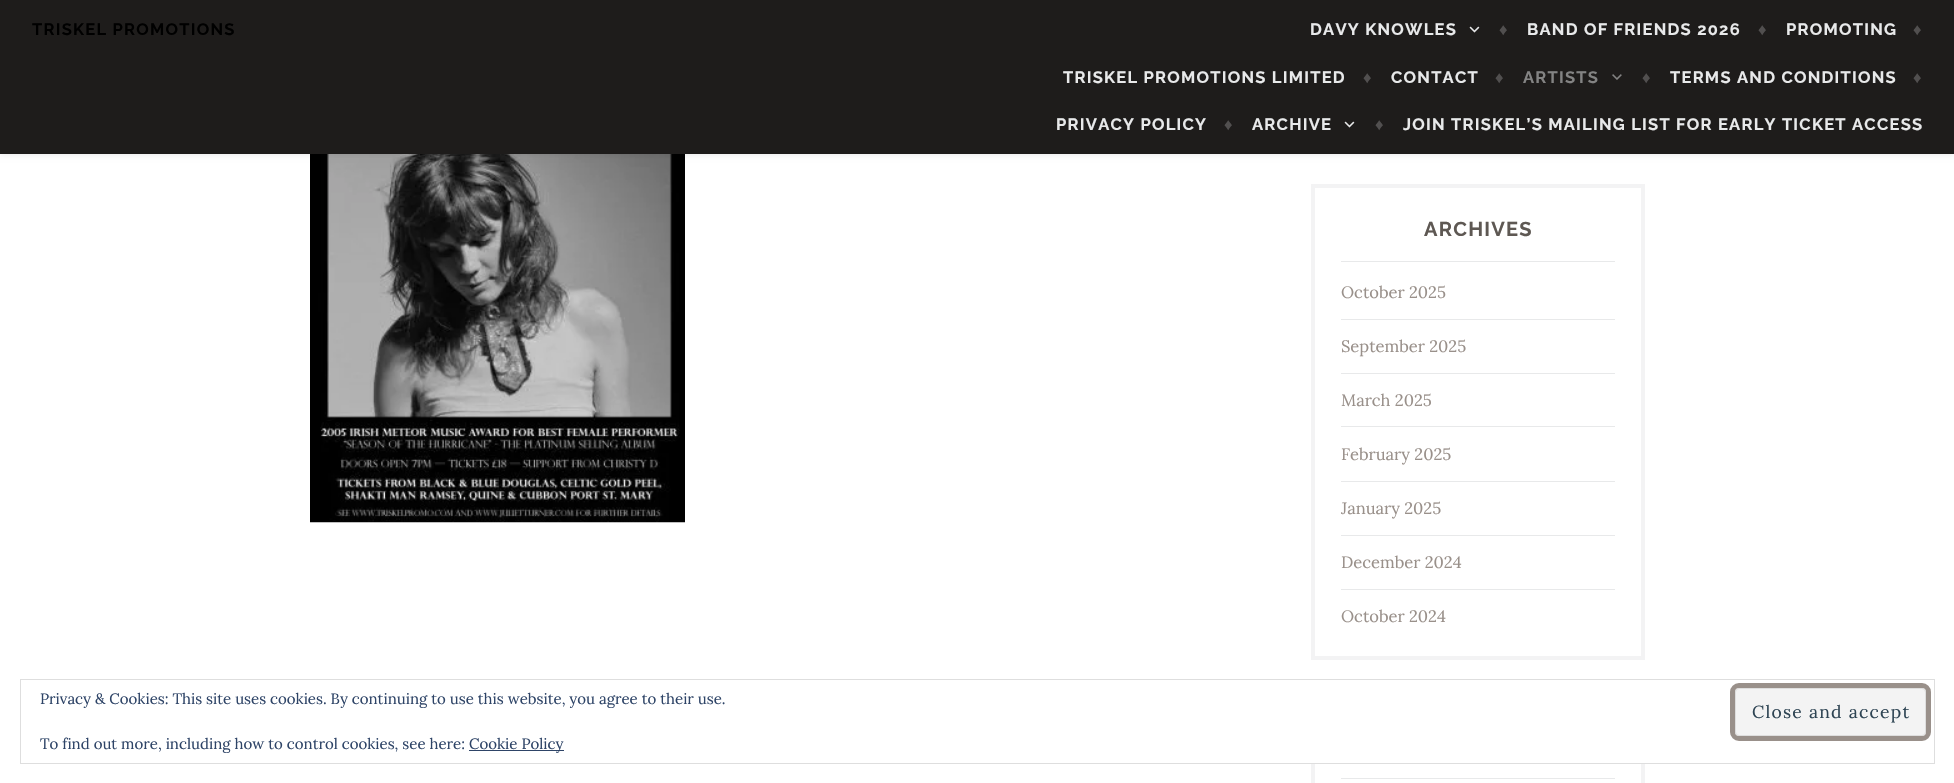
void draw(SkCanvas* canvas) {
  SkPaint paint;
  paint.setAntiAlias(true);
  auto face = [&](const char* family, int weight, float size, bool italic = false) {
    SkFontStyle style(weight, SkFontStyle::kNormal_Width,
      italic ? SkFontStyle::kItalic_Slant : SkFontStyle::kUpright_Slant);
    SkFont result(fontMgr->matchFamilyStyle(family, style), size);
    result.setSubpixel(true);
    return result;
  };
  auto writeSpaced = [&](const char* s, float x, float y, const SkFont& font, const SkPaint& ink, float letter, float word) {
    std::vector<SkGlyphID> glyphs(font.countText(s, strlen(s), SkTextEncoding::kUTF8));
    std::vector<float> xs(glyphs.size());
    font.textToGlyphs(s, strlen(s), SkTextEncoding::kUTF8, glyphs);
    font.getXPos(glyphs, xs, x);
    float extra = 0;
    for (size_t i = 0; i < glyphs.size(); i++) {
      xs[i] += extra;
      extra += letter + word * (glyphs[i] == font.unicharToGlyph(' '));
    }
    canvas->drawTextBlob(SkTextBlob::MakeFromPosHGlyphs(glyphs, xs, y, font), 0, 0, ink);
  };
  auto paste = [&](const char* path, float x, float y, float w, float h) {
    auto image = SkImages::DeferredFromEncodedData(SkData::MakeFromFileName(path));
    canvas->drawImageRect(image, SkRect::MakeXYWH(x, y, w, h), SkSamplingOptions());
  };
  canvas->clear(0xffffffff);
  paste("img/3.png", 310, 154, 375, 369);
  paint.setColor(0x1a000000);
  paint.setMaskFilter(SkMaskFilter::MakeBlur(kNormal_SkBlurStyle, 3));
  canvas->drawRect(SkRect::MakeXYWH(0, 0, 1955, 154), paint);
  paint.setMaskFilter(nullptr);
  paint.setColor(0xff1e1c1b);
  canvas->drawRect(SkRect::MakeXYWH(0, 0, 1954, 154), paint);
  paste("img/1.png", 1469, 26, 11, 7);
  paste("img/2.png", 1612, 74, 10, 6);
  paste("img/1.png", 1344, 121, 11, 7);
  paint.setStroke(true);
  paint.setStrokeWidth(4);
  paint.setColor(0xfff3f3f4);
  canvas->drawRect(SkRect::MakeXYWH(1313, 186, 330, 472), paint);
  paint.setStroke(false);
  {
    const struct { float x, y, w, h; SkColor color; } items[] = {
      {1341, 261, 274, 1, 0xffe8e9ea},
      {1341, 319, 274, 1, 0xffe8e9ea},
      {1341, 373, 274, 1, 0xffe8e9ea},
      {1341, 426, 274, 1, 0xffe8e9ea},
      {1341, 481, 274, 1, 0xffe8e9ea},
      {1341, 535, 274, 1, 0xffe8e9ea},
      {1341, 589, 274, 1, 0xffe8e9ea},
    };
    for (auto [x, y, w, h, color] : items) {
      paint.setColor(color);
      canvas->drawRect(SkRect::MakeXYWH(x, y, w, h), paint);
    }
  }
  paint.setStroke(true);
  paint.setColor(0xfff3f3f4);
  canvas->drawRect(SkRect::MakeXYWH(1313, 701, 330, 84), paint);
  paint.setStroke(false);
  paint.setColor(0xffe8e9ea);
  canvas->drawRect(SkRect::MakeXYWH(1341, 778, 274, 1), paint);
  paint.setColor(0xffffffff);
  canvas->drawRect(SkRect::MakeXYWH(1311, 699, 334, 64), paint);
  paint.setStroke(true);
  paint.setStrokeWidth(1);
  paint.setColor(0xffdedede);
  canvas->drawRect(SkRect::MakeXYWH(20.5f, 679.5f, 1914, 84), paint);
  paint.setStroke(false);
  paint.setColor(0xfff3f3f3);
  canvas->drawRoundRect(SkRect::MakeXYWH(1735.5f, 688.5f, 190, 47), 3.5f, 3.5f, paint);
  paint.setStroke(true);
  paint.setColor(0xffdedede);
  canvas->drawRoundRect(SkRect::MakeXYWH(1735.5f, 688.5f, 190, 47), 3.5f, 3.5f, paint);
  paint.setStrokeWidth(5);
  paint.setColor(0xff99908a);
  canvas->drawRoundRect(SkRect::MakeXYWH(1732.5f, 685.5f, 196, 53), 6.5f, 6.5f, paint);
  paint.setStroke(false);
  paint.setColor(0xff2e4467);
  canvas->drawRect(SkRect::MakeXYWH(469, 750, 95, 1), paint);
  auto f0 = face("Raleway", 700, 16.5f);
  paint.setColor(0xff000000);
  writeSpaced("TRISKEL PROMOTIONS", 32, 35, f0, paint, 1.25f, 0);
  paint.setColor(0xffe8e9ea);
  writeSpaced("DAVY KNOWLES", 1310, 35, f0, paint, 1.25f, 0);
  auto f1 = face("Liberation Sans", 700, 16.5f);
  paint.setColor(0xff514f4f);
  writeSpaced("♦", 1499, 35, f1, paint, 1.25f, 0);
  paint.setColor(0xffe8e9ea);
  writeSpaced("BAND OF FRIENDS 2026", 1527, 35, f0, paint, 1.25f, 0);
  paint.setColor(0xff514f4f);
  writeSpaced("♦", 1758, 35, f1, paint, 1.25f, 0);
  paint.setColor(0xffe8e9ea);
  writeSpaced("PROMOTING", 1786, 35, f0, paint, 1.25f, 0);
  paint.setColor(0xff514f4f);
  writeSpaced("♦", 1913, 35, f1, paint, 1.25f, 0);
  paint.setColor(0xffe8e9ea);
  writeSpaced("TRISKEL PROMOTIONS LIMITED", 1063, 83, f0, paint, 1.25f, 0);
  paint.setColor(0xff514f4f);
  writeSpaced("♦", 1363, 83, f1, paint, 1.25f, 0);
  paint.setColor(0xffe8e9ea);
  writeSpaced("CONTACT", 1391, 83, f0, paint, 1.25f, 0);
  paint.setColor(0xff514f4f);
  writeSpaced("♦", 1495, 83, f1, paint, 1.25f, 0);
  paint.setColor(0xff838383);
  writeSpaced("ARTISTS", 1523, 83, f0, paint, 1.25f, 0);
  paint.setColor(0xff514f4f);
  writeSpaced("♦", 1642, 83, f1, paint, 1.25f, 0);
  paint.setColor(0xffe8e9ea);
  writeSpaced("TERMS AND CONDITIONS", 1670, 83, f0, paint, 1.25f, 0);
  paint.setColor(0xff514f4f);
  writeSpaced("♦", 1913, 83, f1, paint, 1.25f, 0);
  paint.setColor(0xffe8e9ea);
  writeSpaced("PRIVACY POLICY", 1056, 130, f0, paint, 1.25f, 0);
  paint.setColor(0xff514f4f);
  writeSpaced("♦", 1224, 130, f1, paint, 1.25f, 0);
  paint.setColor(0xffe8e9ea);
  writeSpaced("ARCHIVE", 1252, 130, f0, paint, 1.25f, 0);
  paint.setColor(0xff514f4f);
  writeSpaced("♦", 1375, 130, f1, paint, 1.25f, 0);
  paint.setColor(0xffe8e9ea);
  writeSpaced("JOIN TRISKEL’S MAILING LIST FOR EARLY TICKET ACCESS", 1403, 130, f0, paint, 1.25f, 0);
  auto f2 = face("Raleway", 700, 20);
  paint.setColor(0xff5e5853);
  writeSpaced("ARCHIVES", 1424, 236, f2, paint, 1.25f, 0);
  auto f3 = face("Lora", 400, 16.5f);
  paint.setColor(0xff99908a);
  {
    const struct { const char* s; float x, y; } items[] = {
      {"October 2025", 1341, 298},
      {"September 2025", 1341, 352},
      {"March 2025", 1341, 406},
      {"February 2025", 1341, 460},
      {"January 2025", 1341, 514},
      {"December 2024", 1341, 568},
      {"October 2024", 1341, 622},
    };
    for (auto [s, x, y] : items) {
      canvas->drawString(s, x, y, f3, paint);
    }
  }
  auto f4 = face("Lora", 400, 15);
  paint.setColor(0xff2e4467);
  canvas->drawString("Privacy & Cookies: This site uses cookies. By continuing to use this website, you agree to their use.", 40, 704, f4, paint);
  auto f5 = face("Lora", 400, 17.5f);
  paint.setColor(0xff2e4453);
  writeSpaced("Close and accept", 1752, 718, f5, paint, 1.25f, 0);
  paint.setColor(0xff2e4467);
  canvas->drawString("To find out more, including how to control cookies, see here:", 40, 749, f4, paint);
  canvas->drawString("Cookie Policy", 469, 749, f4, paint);
}
